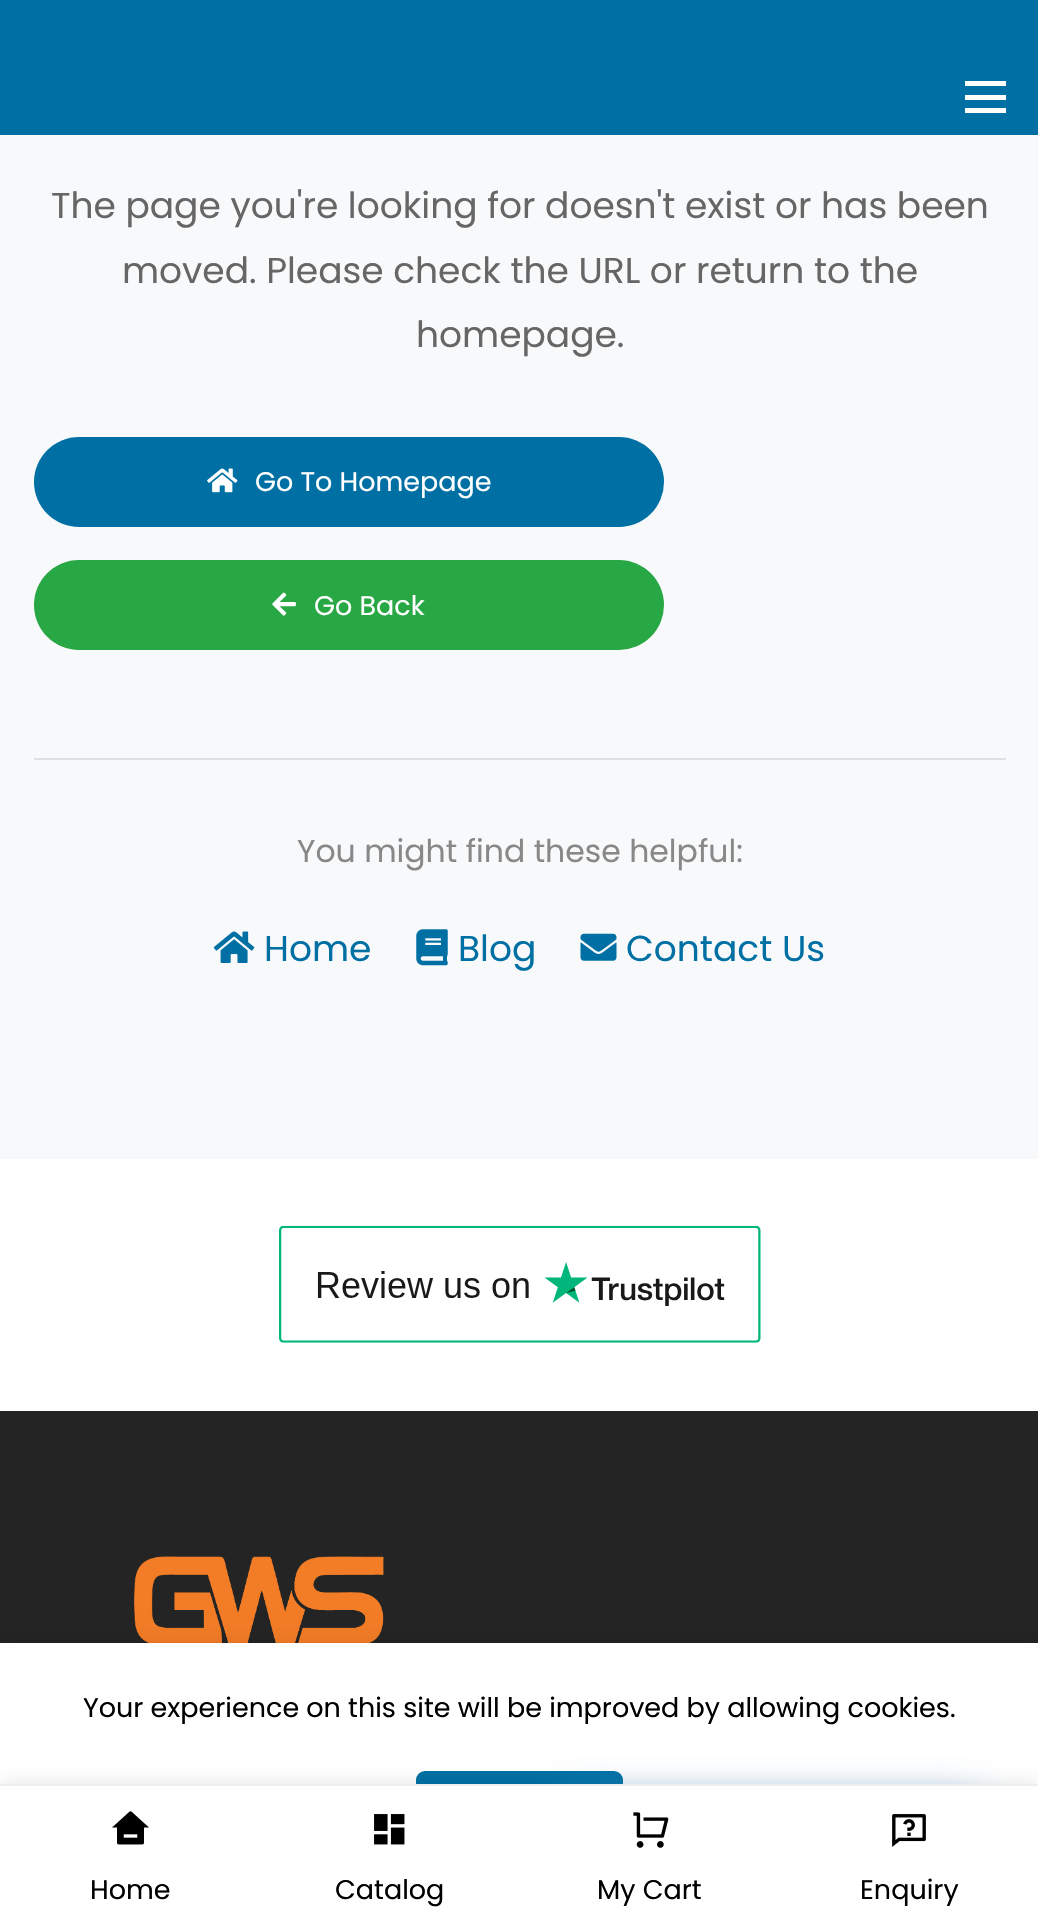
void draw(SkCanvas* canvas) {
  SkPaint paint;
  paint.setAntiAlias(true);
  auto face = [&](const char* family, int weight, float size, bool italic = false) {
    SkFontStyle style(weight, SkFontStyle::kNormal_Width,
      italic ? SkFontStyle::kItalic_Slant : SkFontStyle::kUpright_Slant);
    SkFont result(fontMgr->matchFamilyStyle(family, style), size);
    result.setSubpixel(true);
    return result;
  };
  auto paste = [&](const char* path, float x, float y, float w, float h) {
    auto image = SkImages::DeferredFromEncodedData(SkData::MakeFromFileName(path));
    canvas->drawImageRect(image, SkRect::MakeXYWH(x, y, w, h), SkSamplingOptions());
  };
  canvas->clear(0xffffffff);
  paint.setColor(0xfff8f9fa);
  canvas->drawRect(SkRect::MakeXYWH(0, 135, 1038, 1024), paint);
  paint.setColor(0xff0070a4);
  canvas->drawRoundRect(SkRect::MakeXYWH(34, 437, 630, 90), 45, 45, paint);
  paste("img/1.png", 207, 468, 31, 25);
  paint.setColor(0xff28a745);
  canvas->drawRoundRect(SkRect::MakeXYWH(34, 560, 630, 90), 45, 45, paint);
  paste("img/2.png", 272, 592, 24, 24);
  paint.setColor(0xffe0e0e0);
  canvas->drawRect(SkRect::MakeXYWH(34, 758, 972, 2), paint);
  paste("img/3.png", 213, 931, 42, 32);
  paste("img/4.png", 416, 929, 32, 37);
  paste("img/5.png", 580, 933, 37, 28);
  paste("img/6.png", 279, 1225, 482, 118);
  paint.setColor(0xff242424);
  canvas->drawRect(SkRect::MakeXYWH(0, 1411, 1038, 232), paint);
  paste("img/7.png", 134, 1556, 250, 87);
  paint.setColor(0x1a000000);
  paint.setMaskFilter(SkMaskFilter::MakeBlur(kNormal_SkBlurStyle, 11));
  canvas->drawRect(SkRect::MakeXYWH(0, 1643, 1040, 231), paint);
  paint.setMaskFilter(nullptr);
  paint.setColor(0xffffffff);
  canvas->drawRect(SkRect::MakeXYWH(0, 1643, 1038, 141), paint);
  paint.setColor(0xff0070a4);
  canvas->drawRoundRect(SkRect::MakeXYWH(416, 1771, 207, 67), 9, 9, paint);
  {
    const struct { float x, y, w, h; SkColor color; } items[] = {
      {0, 0, 1038, 135, 0xff0070a4},
      {965, 81, 41, 5, 0xffffffff},
      {965, 95, 41, 5, 0xffffffff},
      {965, 108, 41, 5, 0xffffffff},
    };
    for (auto [x, y, w, h, color] : items) {
      paint.setColor(color);
      canvas->drawRect(SkRect::MakeXYWH(x, y, w, h), paint);
    }
  }
  paint.setColor(0x1a000000);
  paint.setMaskFilter(SkMaskFilter::MakeBlur(kNormal_SkBlurStyle, 9));
  canvas->drawRect(SkRect::MakeXYWH(0, 1784, 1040, 135), paint);
  paint.setMaskFilter(nullptr);
  paint.setColor(0x664a90e2);
  paint.setMaskFilter(SkMaskFilter::MakeBlur(kNormal_SkBlurStyle, 17));
  canvas->drawRoundRect(SkRect::MakeXYWH(538, 1793, 468, 102), 51, 51, paint);
  paint.setMaskFilter(nullptr);
  paint.setColor(0xffffffff);
  canvas->drawRect(SkRect::MakeXYWH(0, 1786, 1038, 133), paint);
  paint.setColor(0xffeeeeee);
  canvas->drawRect(SkRect::MakeXYWH(0, 1784, 1038, 2), paint);
  paste("img/8.png", 112, 1811, 37, 34);
  paste("img/9.png", 374, 1814, 31, 31);
  paste("img/10.png", 633, 1812, 36, 36);
  paste("img/11.png", 892, 1814, 34, 33);
  auto f0 = face("Poppins", 400, 36);
  paint.setColor(0xff666666);
  {
    const struct { const char* s; float x, y; } items[] = {
      {"The page you're looking for doesn't exist or has been", 51, 218},
      {"moved. Please check the URL or return to the", 122, 283},
      {"homepage.", 416, 347},
    };
    for (auto [s, x, y] : items) {
      canvas->drawString(s, x, y, f0, paint);
    }
  }
  auto f1 = face("Poppins", 400, 27);
  paint.setColor(0xffffffff);
  canvas->drawString("Go To Homepage", 255, 491, f1, paint);
  canvas->drawString("Go Back", 314, 615, f1, paint);
  auto f2 = face("Poppins", 400, 31.5f);
  paint.setColor(0xff888888);
  canvas->drawString("You might find these helpful:", 297, 862, f2, paint);
  paint.setColor(0xff0070a4);
  {
    const struct { const char* s; float x, y; } items[] = {
      {"Home", 264, 961},
      {"Blog", 458, 961},
      {"Contact Us", 626, 961},
    };
    for (auto [s, x, y] : items) {
      canvas->drawString(s, x, y, f0, paint);
    }
  }
  paint.setColor(0xff000000);
  {
    const struct { const char* s; float x, y; } items[] = {
      {"Your experience on this site will be improved by allowing cookies.", 83, 1717},
      {"Home", 90, 1899},
      {"Catalog", 335, 1899},
      {"My Cart", 597, 1899},
      {"Enquiry", 860, 1899},
    };
    for (auto [s, x, y] : items) {
      canvas->drawString(s, x, y, f1, paint);
    }
  }
}
